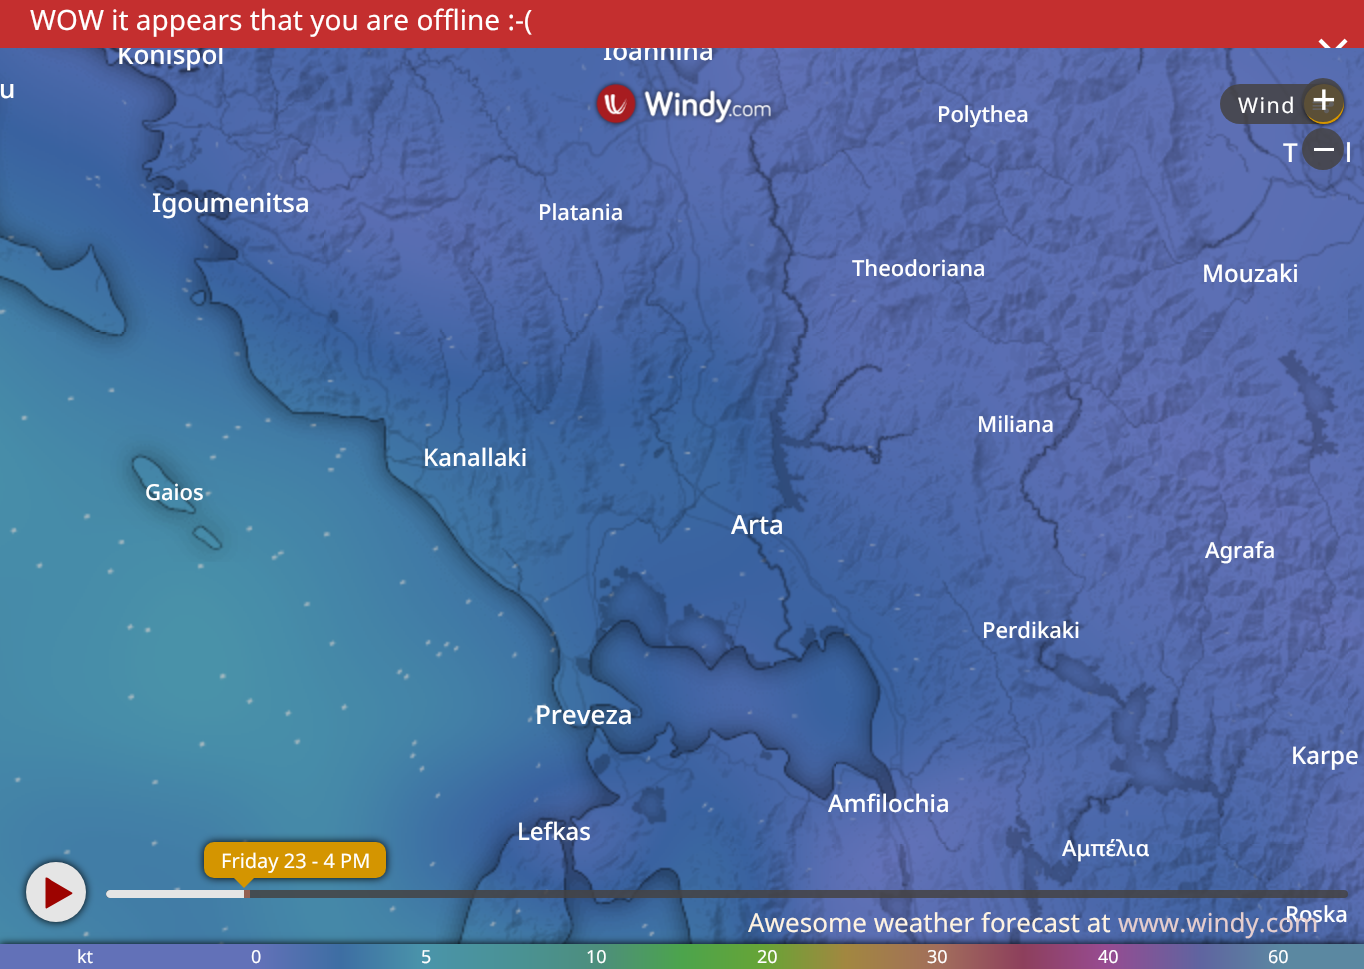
void draw(SkCanvas* canvas) {
  SkPaint paint;
  paint.setAntiAlias(true);
  auto face = [&](const char* family, int weight, float size, bool italic = false) {
    SkFontStyle style(weight, SkFontStyle::kNormal_Width,
      italic ? SkFontStyle::kItalic_Slant : SkFontStyle::kUpright_Slant);
    SkFont result(fontMgr->matchFamilyStyle(family, style), size);
    result.setSubpixel(true);
    return result;
  };
  auto writeSpaced = [&](const char* s, float x, float y, const SkFont& font, const SkPaint& ink, float letter, float word) {
    std::vector<SkGlyphID> glyphs(font.countText(s, strlen(s), SkTextEncoding::kUTF8));
    std::vector<float> xs(glyphs.size());
    font.textToGlyphs(s, strlen(s), SkTextEncoding::kUTF8, glyphs);
    font.getXPos(glyphs, xs, x);
    float extra = 0;
    for (size_t i = 0; i < glyphs.size(); i++) {
      xs[i] += extra;
      extra += letter + word * (glyphs[i] == font.unicharToGlyph(' '));
    }
    canvas->drawTextBlob(SkTextBlob::MakeFromPosHGlyphs(glyphs, xs, y, font), 0, 0, ink);
  };
  auto paste = [&](const char* path, float x, float y, float w, float h) {
    auto image = SkImages::DeferredFromEncodedData(SkData::MakeFromFileName(path));
    canvas->drawImageRect(image, SkRect::MakeXYWH(x, y, w, h), SkSamplingOptions());
  };
  auto shape = [&](const char* data, bool evenOdd = false) {
    SkPath result = *SkParsePath::FromSVGString(data);
    if (evenOdd) result.setFillType(SkPathFillType::kEvenOdd);
    return result;
  };
  canvas->clear(0xffffffff);
  paste("img/2.png", 0, 48, 324, 284);
  paste("img/3.png", 324, 48, 512, 284);
  paste("img/4.png", 836, 48, 512, 284);
  paste("img/5.png", 1348, 48, 16, 284);
  paste("img/6.png", 0, 332, 324, 512);
  paste("img/7.png", 324, 332, 512, 512);
  paste("img/8.png", 836, 332, 512, 512);
  paste("img/9.png", 1348, 332, 16, 512);
  paste("img/10.png", 0, 844, 324, 100);
  paste("img/11.png", 324, 844, 512, 100);
  paste("img/12.png", 836, 844, 512, 100);
  paste("img/13.png", 1348, 844, 16, 100);
  paste("img/14.png", 0, 48, 1344, 896);
  paste("img/15.png", 0, 48, 324, 284);
  paste("img/16.png", 324, 48, 512, 284);
  paste("img/17.png", 836, 48, 512, 284);
  paste("img/18.png", 1348, 51, 16, 281);
  paste("img/19.png", 56, 332, 268, 230);
  paste("img/20.png", 324, 332, 512, 512);
  paste("img/21.png", 836, 332, 512, 512);
  paste("img/22.png", 1348, 332, 16, 512);
  paste("img/23.png", 436, 844, 400, 100);
  paste("img/24.png", 836, 844, 512, 100);
  paste("img/25.png", 1348, 844, 16, 100);
  paste("img/26.png", 592, 80, 48, 47);
  paste("img/27.png", 641, 87, 134, 40);
  paint.setColor(0xd6444141);
  canvas->drawRoundRect(SkRect::MakeXYWH(1220, 84, 124, 40), 20, 20, paint);
  paint.setColor(0xff000000);
  paint.setMaskFilter(SkMaskFilter::MakeBlur(kNormal_SkBlurStyle, 2.5f));
  canvas->drawRoundRect(SkRect::MakeXYWH(1304, 84, 40, 40), 20, 20, paint);
  paint.setMaskFilter(nullptr);
  paint.setColor(0xffd49500);
  canvas->drawCircle(1324, 104, 20, paint);
  paste("img/28.png", 1312, 101, 22, 13);
  paint.setColor(0xd6444141);
  canvas->drawRoundRect(SkRect::MakeXYWH(1302, 78, 42, 44), 21, 21, paint);
  paste("img/29.png", 1313, 89, 22, 21);
  canvas->drawCircle(1323, 149, 21, paint);
  paint.setColor(0xffffffff);
  canvas->drawRect(SkRect::MakeXYWH(1314, 148, 20, 3), paint);
  paint.setColor(0xff000000);
  paint.setMaskFilter(SkMaskFilter::MakeBlur(kNormal_SkBlurStyle, 4));
  canvas->drawRoundRect(SkRect::MakeXYWH(26, 862, 60, 60), 30, 30, paint);
  paint.setMaskFilter(nullptr);
  paint.setColor(0xffe5e5e5);
  canvas->drawCircle(56, 892, 30, paint);
  paint.setColor(0xff9d0300);
  canvas->drawPath(shape("M72.5 893L72 892.5L51.5 880.5C49.5 879 46.5 876.5 45.5 878V907.5C45.5 908 46 908.5 46.5 908.5L72 894Z"), paint);
  paint.setColor(0xff000000);
  paint.setMaskFilter(SkMaskFilter::MakeBlur(kNormal_SkBlurStyle, 4));
  canvas->drawRoundRect(SkRect::MakeXYWH(204, 842, 182, 36), 10, 10, paint);
  paint.setMaskFilter(nullptr);
  paint.setColor(0xffd49500);
  canvas->drawRoundRect(SkRect::MakeXYWH(204, 842, 182, 36), 10, 10, paint);
  canvas->drawPath(shape("M234 878H254L244 888Z"), paint);
  paint.setColor(0xd6444141);
  canvas->drawRoundRect(SkRect::MakeXYWH(106, 890, 1242, 8), 4, 4, paint);
  paint.setColor(0xffe5e5e5);
  canvas->drawPath(shape("M110 890H244V898H110C108 898 106 896 106 894C106 892 108 890 110 890Z"), paint);
  paint.setColor(0xff946051);
  canvas->drawRect(SkRect::MakeXYWH(244, 890, 6, 8), paint);
  paint.setColor(0xff000000);
  paint.setMaskFilter(SkMaskFilter::MakeBlur(kNormal_SkBlurStyle, 4));
  canvas->drawRect(SkRect::MakeXYWH(0, 944, 1364, 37), paint);
  paint.setMaskFilter(nullptr);
  {
    const SkColor colors[] = {0xff6271b8, 0xff6271b8, 0xff3d6ea3, 0xff4a94aa, 0xff4a9294, 0xff4d8e7c, 0xff4ca44c, 0xff67a436, 0xffa28740, 0xffa26d5c, 0xff8d3f5c, 0xff974b91, 0xff5f64a0, 0xff5b88a1, 0xff5b88a1};
    const float stops[] = {0, 0.19f, 0.25f, 0.31f, 0.38f, 0.44f, 0.5f, 0.56f, 0.62f, 0.69f, 0.75f, 0.81f, 0.88f, 0.94f, 1};
    const SkPoint ends[] = {{0, 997}, {1364, 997}};
    paint.setShader(SkGradientShader::MakeLinear(ends, colors, stops, 15, SkTileMode::kClamp));
    paint.setAlpha(255);
  }
  canvas->drawRect(SkRect::MakeXYWH(0, 944, 1364, 25), paint);
  auto f0 = face("Noto Sans", 500, 26);
  paint.setShader(nullptr);
  paint.setColor(0xffffffff);
  {
    const struct { const char* s; float x, y; } items[] = {
      {"Konispol", 117, 64},
      {"u", -1, 98},
      {"Igoumenitsa", 152, 212},
      {"Ioannina", 603, 60},
    };
    for (auto [s, x, y] : items) {
      canvas->drawString(s, x, y, f0, paint);
    }
  }
  paint.setColor(0xffc42f2f);
  canvas->drawRect(SkRect::MakeXYWH(0, 0, 1364, 48), paint);
  paste("img/1.png", 1318, 38, 30, 10);
  auto f1 = face("Noto Sans", 400, 28);
  paint.setColor(0xffffffff);
  canvas->drawString("WOW it appears that you are offline :-(", 30, 30, f1, paint);
  auto f2 = face("Noto Sans", 500, 22);
  canvas->drawString("Platania", 538, 220, f2, paint);
  canvas->drawString("Polythea", 937, 122, f2, paint);
  canvas->drawString("T", 1283, 162, f0, paint);
  canvas->drawString("l", 1345, 162, f0, paint);
  canvas->drawString("Theodoriana", 852, 276, f2, paint);
  auto f3 = face("Noto Sans", 500, 24);
  canvas->drawString("Mouzaki", 1202, 282, f3, paint);
  canvas->drawString("Gaios", 145, 500, f2, paint);
  canvas->drawString("Kanallaki", 423, 466, f3, paint);
  canvas->drawString("Arta", 731, 534, f0, paint);
  canvas->drawString("Preveza", 535, 724, f0, paint);
  canvas->drawString("Lefkas", 517, 840, f3, paint);
  {
    const struct { const char* s; float x, y; } items[] = {
      {"Miliana", 977, 432},
      {"Agrafa", 1205, 558},
      {"Perdikaki", 982, 638},
    };
    for (auto [s, x, y] : items) {
      canvas->drawString(s, x, y, f2, paint);
    }
  }
  canvas->drawString("Karpe", 1291, 764, f3, paint);
  canvas->drawString("Amfilochia", 828, 812, f3, paint);
  canvas->drawString("Αμπέλια", 1062, 856, f2, paint);
  canvas->drawString("Roska", 1285, 922, f2, paint);
  auto f4 = face("Noto Sans", 400, 21.5f);
  writeSpaced("Wind", 1238, 113, f4, paint, 1.5f, 0);
  auto f5 = face("Noto Sans", 400, 20);
  canvas->drawString("Friday 23 - 4 PM", 221, 868, f5, paint);
  auto f6 = face("Noto Sans", 400, 26);
  paint.setColor(0xfffff3e1);
  canvas->drawString("Awesome weather forecast at", 748, 932, f6, paint);
  paint.setColor(0xffe6cece);
  canvas->drawString("www.windy.com", 1118, 932, f6, paint);
  auto f7 = face("Noto Sans", 400, 18);
  paint.setColor(0xffffffff);
  {
    const struct { const char* s; float x, y; } items[] = {
      {"kt", 77, 963},
      {"0", 251, 963},
      {"5", 421, 963},
      {"10", 586, 963},
      {"20", 757, 963},
      {"30", 927, 963},
      {"40", 1098, 963},
      {"60", 1268, 963},
    };
    for (auto [s, x, y] : items) {
      canvas->drawString(s, x, y, f7, paint);
    }
  }
}
